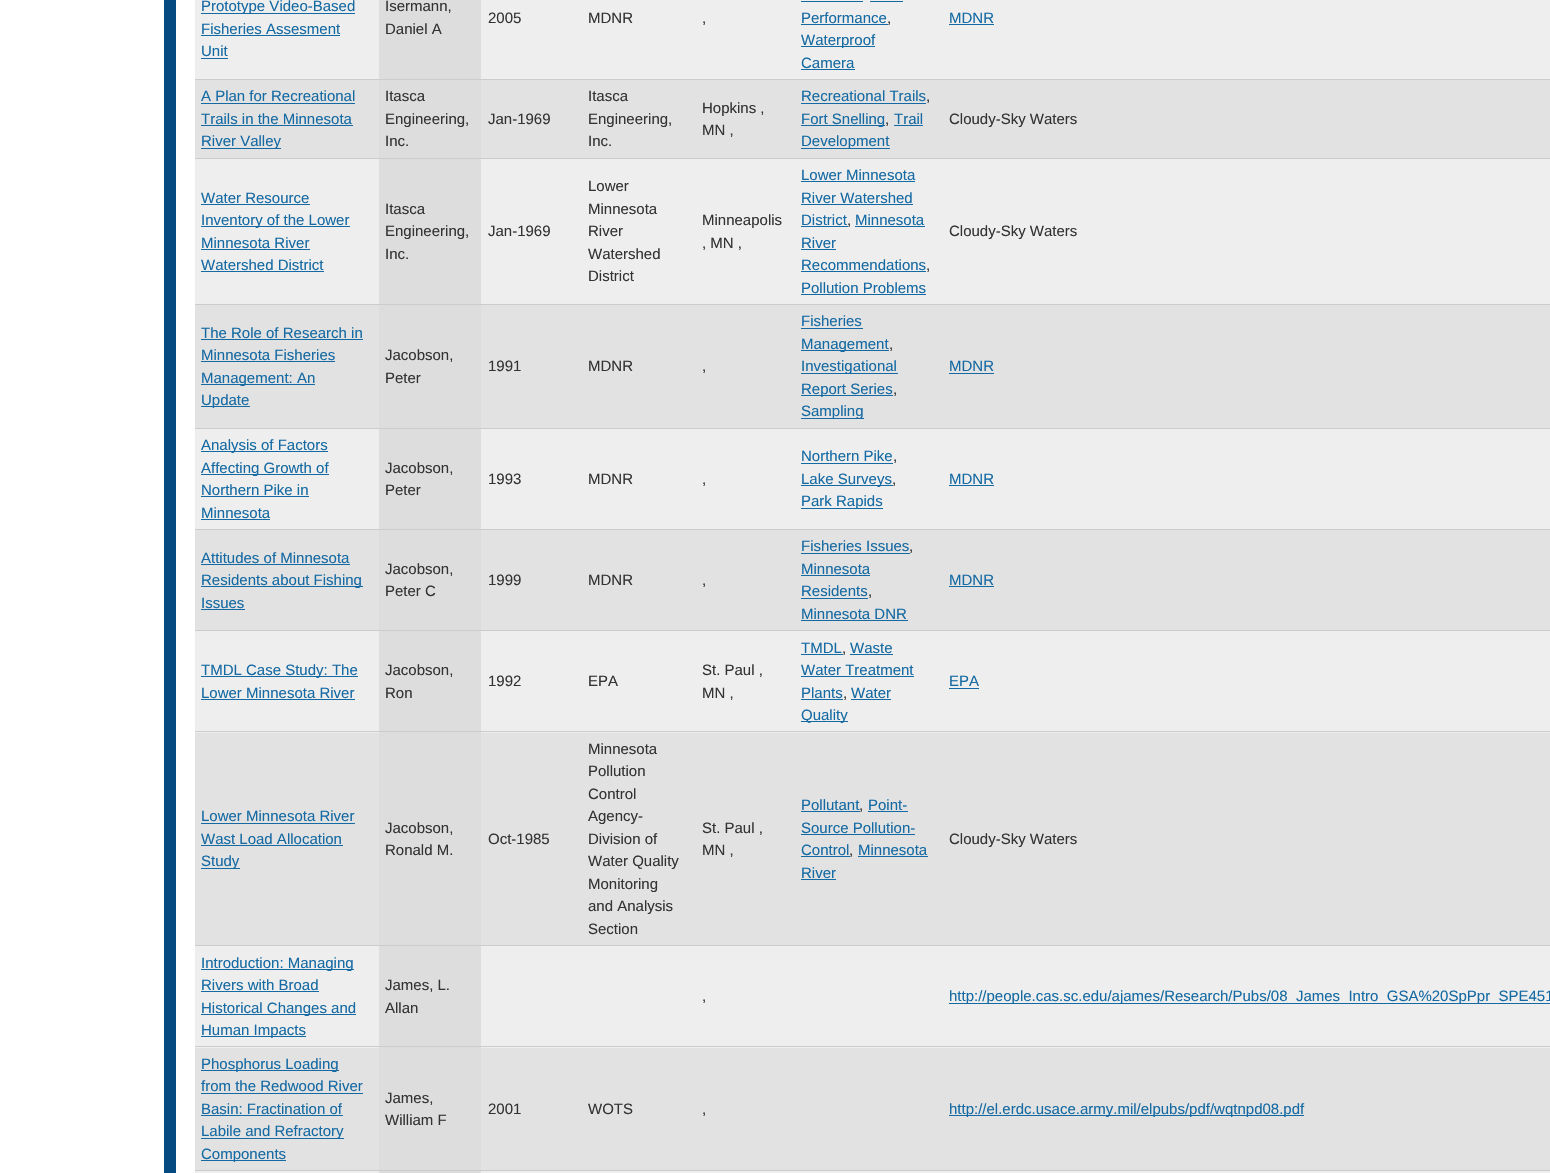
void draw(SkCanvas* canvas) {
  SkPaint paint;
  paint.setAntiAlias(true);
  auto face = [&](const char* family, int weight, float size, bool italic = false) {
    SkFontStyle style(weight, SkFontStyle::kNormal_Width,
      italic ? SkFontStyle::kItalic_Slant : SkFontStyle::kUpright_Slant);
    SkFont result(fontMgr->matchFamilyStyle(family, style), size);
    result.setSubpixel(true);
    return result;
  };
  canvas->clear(0xffffffff);
  {
    const struct { float x, y, w, h; SkColor color; } items[] = {
      {164, 0, 12, 1173, 0xff054b81},
      {195, 0, 1355, 79, 0xffeeeeee},
      {195, 79, 1355, 1, 0xffcccccc},
      {201, 13, 154, 1, 0xff156aa3},
      {201, 35, 139, 1, 0xff156aa3},
      {201, 58, 27, 1, 0xff156aa3},
      {379, 0, 102, 79, 0xffdddddd},
      {801, 1, 62, 1, 0xff156aa3},
      {870, 1, 33, 1, 0xff156aa3},
      {801, 24, 87, 1, 0xff156aa3},
      {801, 46, 74, 1, 0xff156aa3},
      {801, 69, 54, 1, 0xff156aa3},
      {949, 24, 45, 1, 0xff156aa3},
      {195, 80, 1355, 78, 0xffe2e2e2},
      {195, 158, 1355, 1, 0xffcccccc},
      {201, 103, 154, 1, 0xff156aa3},
      {201, 125, 152, 1, 0xff156aa3},
      {201, 148, 80, 1, 0xff156aa3},
      {379, 80, 102, 78, 0xffdddddd},
      {801, 103, 125, 1, 0xff156aa3},
      {801, 125, 84, 1, 0xff156aa3},
      {894, 125, 29, 1, 0xff156aa3},
      {801, 148, 89, 1, 0xff156aa3},
      {195, 159, 1355, 145, 0xffeeeeee},
      {195, 304, 1355, 1, 0xffcccccc},
      {201, 204, 109, 1, 0xff156aa3},
      {201, 226, 149, 1, 0xff156aa3},
      {201, 249, 109, 1, 0xff156aa3},
      {201, 271, 123, 1, 0xff156aa3},
      {379, 159, 102, 145, 0xffdddddd},
      {801, 181, 114, 1, 0xff156aa3},
      {801, 204, 112, 1, 0xff156aa3},
      {801, 226, 47, 1, 0xff156aa3},
      {855, 226, 70, 1, 0xff156aa3},
      {801, 249, 35, 1, 0xff156aa3},
      {801, 271, 125, 1, 0xff156aa3},
      {801, 294, 125, 1, 0xff156aa3},
      {195, 305, 1355, 123, 0xffe2e2e2},
      {195, 428, 1355, 1, 0xffcccccc},
      {201, 339, 162, 1, 0xff156aa3},
      {201, 361, 134, 1, 0xff156aa3},
      {201, 384, 114, 1, 0xff156aa3},
      {201, 406, 49, 1, 0xff156aa3},
      {379, 305, 102, 123, 0xffdddddd},
      {801, 328, 62, 1, 0xff156aa3},
      {801, 350, 88, 1, 0xff156aa3},
      {801, 373, 97, 1, 0xff156aa3},
      {801, 395, 92, 1, 0xff156aa3},
      {801, 418, 63, 1, 0xff156aa3},
      {949, 373, 45, 1, 0xff156aa3},
      {195, 429, 1355, 100, 0xffeeeeee},
      {195, 529, 1355, 1, 0xffcccccc},
      {201, 451, 127, 1, 0xff156aa3},
      {201, 474, 128, 1, 0xff156aa3},
      {201, 496, 108, 1, 0xff156aa3},
      {201, 519, 69, 1, 0xff156aa3},
      {379, 429, 102, 100, 0xffdddddd},
      {801, 463, 92, 1, 0xff156aa3},
      {801, 485, 92, 1, 0xff156aa3},
      {801, 508, 82, 1, 0xff156aa3},
      {949, 485, 45, 1, 0xff156aa3},
      {195, 530, 1355, 100, 0xffe2e2e2},
      {195, 630, 1355, 1, 0xffcccccc},
      {201, 564, 149, 1, 0xff156aa3},
      {201, 586, 162, 1, 0xff156aa3},
      {201, 609, 44, 1, 0xff156aa3},
      {379, 530, 102, 100, 0xffdddddd},
      {801, 553, 109, 1, 0xff156aa3},
      {801, 575, 69, 1, 0xff156aa3},
      {801, 598, 67, 1, 0xff156aa3},
      {801, 620, 107, 1, 0xff156aa3},
      {949, 586, 45, 1, 0xff156aa3},
      {195, 631, 1355, 102, 0xffeeeeee},
      {379, 631, 102, 102, 0xffdddddd},
      {195, 731, 1355, 1, 0xffcccccc},
      {201, 676, 157, 1, 0xff156aa3},
      {201, 699, 154, 1, 0xff156aa3},
      {801, 654, 42, 1, 0xff156aa3},
      {850, 654, 43, 1, 0xff156aa3},
      {801, 676, 113, 1, 0xff156aa3},
      {801, 699, 42, 1, 0xff156aa3},
      {851, 699, 40, 1, 0xff156aa3},
      {801, 721, 47, 1, 0xff156aa3},
      {949, 688, 30, 1, 0xff156aa3},
      {195, 733, 1355, 212, 0xffe2e2e2},
      {195, 945, 1355, 1, 0xffcccccc},
      {201, 823, 154, 1, 0xff156aa3},
      {201, 845, 142, 1, 0xff156aa3},
      {201, 868, 39, 1, 0xff156aa3},
      {379, 733, 102, 212, 0xffdddddd},
      {801, 811, 59, 1, 0xff156aa3},
      {868, 811, 40, 1, 0xff156aa3},
      {801, 834, 114, 1, 0xff156aa3},
      {801, 856, 49, 1, 0xff156aa3},
      {858, 856, 70, 1, 0xff156aa3},
      {801, 879, 35, 1, 0xff156aa3},
      {195, 946, 1355, 102, 0xffeeeeee},
      {379, 946, 102, 102, 0xffdddddd},
      {195, 1046, 1355, 1, 0xffcccccc},
      {201, 969, 153, 1, 0xff156aa3},
      {201, 991, 118, 1, 0xff156aa3},
      {201, 1014, 155, 1, 0xff156aa3},
      {201, 1036, 105, 1, 0xff156aa3},
      {949, 1003, 601, 1, 0xff156aa3},
      {195, 1048, 1355, 122, 0xffe2e2e2},
      {195, 1170, 1355, 1, 0xffcccccc},
      {201, 1070, 138, 1, 0xff156aa3},
      {201, 1093, 162, 1, 0xff156aa3},
      {201, 1115, 142, 1, 0xff156aa3},
      {201, 1138, 143, 1, 0xff156aa3},
      {201, 1160, 85, 1, 0xff156aa3},
      {379, 1048, 102, 122, 0xffdddddd},
      {949, 1115, 355, 1, 0xff156aa3},
      {195, 1171, 1355, 2, 0xffeeeeee},
      {379, 1171, 102, 2, 0xffdddddd},
    };
    for (auto [x, y, w, h, color] : items) {
      paint.setColor(color);
      canvas->drawRect(SkRect::MakeXYWH(x, y, w, h), paint);
    }
  }
  auto f0 = face("Liberation Sans", 400, 15);
  paint.setColor(0xff156aa3);
  {
    const struct { const char* s; float x, y; } items[] = {
      {"Prototype Video-Based", 201, 11},
      {"Fisheries Assesment", 201, 34},
      {"Unit", 201, 56},
    };
    for (auto [s, x, y] : items) {
      canvas->drawString(s, x, y, f0, paint);
    }
  }
  paint.setColor(0xff333333);
  {
    const struct { const char* s; float x, y; } items[] = {
      {"Isermann,", 385, 11},
      {"Daniel A", 385, 34},
      {"2005", 488, 23},
      {"MDNR", 588, 23},
      {",", 702, 23},
    };
    for (auto [s, x, y] : items) {
      canvas->drawString(s, x, y, f0, paint);
    }
  }
  paint.setColor(0xff156aa3);
  canvas->drawString("Performance", 801, 23, f0, paint);
  paint.setColor(0xff333333);
  canvas->drawString(",", 887, 23, f0, paint);
  paint.setColor(0xff156aa3);
  {
    const struct { const char* s; float x, y; } items[] = {
      {"Waterproof", 801, 45},
      {"Camera", 801, 68},
      {"MDNR", 949, 23},
      {"A Plan for Recreational", 201, 101},
      {"Trails in the Minnesota", 201, 124},
      {"River Valley", 201, 146},
    };
    for (auto [s, x, y] : items) {
      canvas->drawString(s, x, y, f0, paint);
    }
  }
  paint.setColor(0xff333333);
  {
    const struct { const char* s; float x, y; } items[] = {
      {"Itasca", 385, 101},
      {"Engineering,", 385, 124},
      {"Inc.", 385, 146},
      {"Jan-1969", 488, 124},
      {"Itasca", 588, 101},
      {"Engineering,", 588, 124},
      {"Inc.", 588, 146},
      {"Hopkins ,", 702, 113},
      {"MN ,", 702, 135},
    };
    for (auto [s, x, y] : items) {
      canvas->drawString(s, x, y, f0, paint);
    }
  }
  paint.setColor(0xff156aa3);
  canvas->drawString("Recreational Trails", 801, 101, f0, paint);
  paint.setColor(0xff333333);
  canvas->drawString(",", 926, 101, f0, paint);
  paint.setColor(0xff156aa3);
  canvas->drawString("Fort Snelling", 801, 124, f0, paint);
  paint.setColor(0xff333333);
  canvas->drawString(",", 885, 124, f0, paint);
  paint.setColor(0xff156aa3);
  canvas->drawString("Trail", 894, 124, f0, paint);
  canvas->drawString("Development", 801, 146, f0, paint);
  paint.setColor(0xff333333);
  canvas->drawString("Cloudy-Sky Waters", 949, 124, f0, paint);
  paint.setColor(0xff156aa3);
  {
    const struct { const char* s; float x, y; } items[] = {
      {"Water Resource", 201, 203},
      {"Inventory of the Lower", 201, 225},
      {"Minnesota River", 201, 248},
      {"Watershed District", 201, 270},
    };
    for (auto [s, x, y] : items) {
      canvas->drawString(s, x, y, f0, paint);
    }
  }
  paint.setColor(0xff333333);
  {
    const struct { const char* s; float x, y; } items[] = {
      {"Itasca", 385, 214},
      {"Engineering,", 385, 236},
      {"Inc.", 385, 259},
      {"Jan-1969", 488, 236},
      {"Lower", 588, 191},
      {"Minnesota", 588, 214},
      {"River", 588, 236},
      {"Watershed", 588, 259},
      {"District", 588, 281},
      {"Minneapolis", 702, 225},
      {", MN ,", 702, 248},
    };
    for (auto [s, x, y] : items) {
      canvas->drawString(s, x, y, f0, paint);
    }
  }
  paint.setColor(0xff156aa3);
  {
    const struct { const char* s; float x, y; } items[] = {
      {"Lower Minnesota", 801, 180},
      {"River Watershed", 801, 203},
      {"District", 801, 225},
    };
    for (auto [s, x, y] : items) {
      canvas->drawString(s, x, y, f0, paint);
    }
  }
  paint.setColor(0xff333333);
  canvas->drawString(",", 847, 225, f0, paint);
  paint.setColor(0xff156aa3);
  {
    const struct { const char* s; float x, y; } items[] = {
      {"Minnesota", 855, 225},
      {"River", 801, 248},
      {"Recommendations", 801, 270},
    };
    for (auto [s, x, y] : items) {
      canvas->drawString(s, x, y, f0, paint);
    }
  }
  paint.setColor(0xff333333);
  canvas->drawString(",", 926, 270, f0, paint);
  paint.setColor(0xff156aa3);
  canvas->drawString("Pollution Problems", 801, 293, f0, paint);
  paint.setColor(0xff333333);
  canvas->drawString("Cloudy-Sky Waters", 949, 236, f0, paint);
  paint.setColor(0xff156aa3);
  {
    const struct { const char* s; float x, y; } items[] = {
      {"The Role of Research in", 201, 338},
      {"Minnesota Fisheries", 201, 360},
      {"Management: An", 201, 383},
      {"Update", 201, 405},
    };
    for (auto [s, x, y] : items) {
      canvas->drawString(s, x, y, f0, paint);
    }
  }
  paint.setColor(0xff333333);
  {
    const struct { const char* s; float x, y; } items[] = {
      {"Jacobson,", 385, 360},
      {"Peter", 385, 383},
      {"1991", 488, 371},
      {"MDNR", 588, 371},
      {",", 702, 371},
    };
    for (auto [s, x, y] : items) {
      canvas->drawString(s, x, y, f0, paint);
    }
  }
  paint.setColor(0xff156aa3);
  canvas->drawString("Fisheries", 801, 326, f0, paint);
  canvas->drawString("Management", 801, 349, f0, paint);
  paint.setColor(0xff333333);
  canvas->drawString(",", 889, 349, f0, paint);
  paint.setColor(0xff156aa3);
  canvas->drawString("Investigational", 801, 371, f0, paint);
  canvas->drawString("Report Series", 801, 394, f0, paint);
  paint.setColor(0xff333333);
  canvas->drawString(",", 893, 394, f0, paint);
  paint.setColor(0xff156aa3);
  {
    const struct { const char* s; float x, y; } items[] = {
      {"Sampling", 801, 416},
      {"MDNR", 949, 371},
      {"Analysis of Factors", 201, 450},
      {"Affecting Growth of", 201, 473},
      {"Northern Pike in", 201, 495},
      {"Minnesota", 201, 518},
    };
    for (auto [s, x, y] : items) {
      canvas->drawString(s, x, y, f0, paint);
    }
  }
  paint.setColor(0xff333333);
  {
    const struct { const char* s; float x, y; } items[] = {
      {"Jacobson,", 385, 473},
      {"Peter", 385, 495},
      {"1993", 488, 484},
      {"MDNR", 588, 484},
      {",", 702, 484},
    };
    for (auto [s, x, y] : items) {
      canvas->drawString(s, x, y, f0, paint);
    }
  }
  paint.setColor(0xff156aa3);
  canvas->drawString("Northern Pike", 801, 461, f0, paint);
  paint.setColor(0xff333333);
  canvas->drawString(",", 893, 461, f0, paint);
  paint.setColor(0xff156aa3);
  canvas->drawString("Lake Surveys", 801, 484, f0, paint);
  paint.setColor(0xff333333);
  canvas->drawString(",", 892, 484, f0, paint);
  paint.setColor(0xff156aa3);
  {
    const struct { const char* s; float x, y; } items[] = {
      {"Park Rapids", 801, 506},
      {"MDNR", 949, 484},
      {"Attitudes of Minnesota", 201, 563},
      {"Residents about Fishing", 201, 585},
      {"Issues", 201, 608},
    };
    for (auto [s, x, y] : items) {
      canvas->drawString(s, x, y, f0, paint);
    }
  }
  paint.setColor(0xff333333);
  {
    const struct { const char* s; float x, y; } items[] = {
      {"Jacobson,", 385, 574},
      {"Peter C", 385, 596},
      {"1999", 488, 585},
      {"MDNR", 588, 585},
      {",", 702, 585},
    };
    for (auto [s, x, y] : items) {
      canvas->drawString(s, x, y, f0, paint);
    }
  }
  paint.setColor(0xff156aa3);
  canvas->drawString("Fisheries Issues", 801, 551, f0, paint);
  paint.setColor(0xff333333);
  canvas->drawString(",", 909, 551, f0, paint);
  paint.setColor(0xff156aa3);
  canvas->drawString("Minnesota", 801, 574, f0, paint);
  canvas->drawString("Residents", 801, 596, f0, paint);
  paint.setColor(0xff333333);
  canvas->drawString(",", 868, 596, f0, paint);
  paint.setColor(0xff156aa3);
  {
    const struct { const char* s; float x, y; } items[] = {
      {"Minnesota DNR", 801, 619},
      {"MDNR", 949, 585},
      {"TMDL Case Study: The", 201, 675},
      {"Lower Minnesota River", 201, 698},
    };
    for (auto [s, x, y] : items) {
      canvas->drawString(s, x, y, f0, paint);
    }
  }
  paint.setColor(0xff333333);
  {
    const struct { const char* s; float x, y; } items[] = {
      {"Jacobson,", 385, 675},
      {"Ron", 385, 698},
      {"1992", 488, 686},
      {"EPA", 588, 686},
      {"St. Paul ,", 702, 675},
      {"MN ,", 702, 698},
    };
    for (auto [s, x, y] : items) {
      canvas->drawString(s, x, y, f0, paint);
    }
  }
  paint.setColor(0xff156aa3);
  canvas->drawString("TMDL", 801, 653, f0, paint);
  paint.setColor(0xff333333);
  canvas->drawString(",", 842, 653, f0, paint);
  paint.setColor(0xff156aa3);
  {
    const struct { const char* s; float x, y; } items[] = {
      {"Waste", 850, 653},
      {"Water Treatment", 801, 675},
      {"Plants", 801, 698},
    };
    for (auto [s, x, y] : items) {
      canvas->drawString(s, x, y, f0, paint);
    }
  }
  paint.setColor(0xff333333);
  canvas->drawString(",", 843, 698, f0, paint);
  paint.setColor(0xff156aa3);
  {
    const struct { const char* s; float x, y; } items[] = {
      {"Water", 851, 698},
      {"Quality", 801, 720},
      {"EPA", 949, 686},
      {"Lower Minnesota River", 201, 821},
      {"Wast Load Allocation", 201, 844},
      {"Study", 201, 866},
    };
    for (auto [s, x, y] : items) {
      canvas->drawString(s, x, y, f0, paint);
    }
  }
  paint.setColor(0xff333333);
  {
    const struct { const char* s; float x, y; } items[] = {
      {"Jacobson,", 385, 833},
      {"Ronald M.", 385, 855},
      {"Oct-1985", 488, 844},
      {"Minnesota", 588, 754},
      {"Pollution", 588, 776},
      {"Control", 588, 799},
      {"Agency-", 588, 821},
      {"Division of", 588, 844},
      {"Water Quality", 588, 866},
      {"Monitoring", 588, 889},
      {"and Analysis", 588, 911},
      {"Section", 588, 934},
      {"St. Paul ,", 702, 833},
      {"MN ,", 702, 855},
    };
    for (auto [s, x, y] : items) {
      canvas->drawString(s, x, y, f0, paint);
    }
  }
  paint.setColor(0xff156aa3);
  canvas->drawString("Pollutant", 801, 810, f0, paint);
  paint.setColor(0xff333333);
  canvas->drawString(",", 859, 810, f0, paint);
  paint.setColor(0xff156aa3);
  {
    const struct { const char* s; float x, y; } items[] = {
      {"Point-", 868, 810},
      {"Source Pollution-", 801, 833},
      {"Control", 801, 855},
    };
    for (auto [s, x, y] : items) {
      canvas->drawString(s, x, y, f0, paint);
    }
  }
  paint.setColor(0xff333333);
  canvas->drawString(",", 849, 855, f0, paint);
  paint.setColor(0xff156aa3);
  canvas->drawString("Minnesota", 858, 855, f0, paint);
  canvas->drawString("River", 801, 878, f0, paint);
  paint.setColor(0xff333333);
  canvas->drawString("Cloudy-Sky Waters", 949, 844, f0, paint);
  paint.setColor(0xff156aa3);
  {
    const struct { const char* s; float x, y; } items[] = {
      {"Introduction: Managing", 201, 968},
      {"Rivers with Broad", 201, 990},
      {"Historical Changes and", 201, 1013},
      {"Human Impacts", 201, 1035},
    };
    for (auto [s, x, y] : items) {
      canvas->drawString(s, x, y, f0, paint);
    }
  }
  paint.setColor(0xff333333);
  {
    const struct { const char* s; float x, y; } items[] = {
      {"James, L.", 385, 990},
      {"Allan", 385, 1013},
      {",", 702, 1001},
    };
    for (auto [s, x, y] : items) {
      canvas->drawString(s, x, y, f0, paint);
    }
  }
  paint.setColor(0xff156aa3);
  {
    const struct { const char* s; float x, y; } items[] = {
      {"http://people.cas.sc.edu/ajames/Research/Pubs/08_James_Intro_GSA%20SpPpr_SPE451", 949, 1001},
      {"Phosphorus Loading", 201, 1069},
      {"from the Redwood River", 201, 1091},
      {"Basin: Fractination of", 201, 1114},
      {"Labile and Refractory", 201, 1136},
      {"Components", 201, 1159},
    };
    for (auto [s, x, y] : items) {
      canvas->drawString(s, x, y, f0, paint);
    }
  }
  paint.setColor(0xff333333);
  {
    const struct { const char* s; float x, y; } items[] = {
      {"James,", 385, 1103},
      {"William F", 385, 1125},
      {"2001", 488, 1114},
      {"WOTS", 588, 1114},
      {",", 702, 1114},
    };
    for (auto [s, x, y] : items) {
      canvas->drawString(s, x, y, f0, paint);
    }
  }
  paint.setColor(0xff156aa3);
  canvas->drawString("http://el.erdc.usace.army.mil/elpubs/pdf/wqtnpd08.pdf", 949, 1114, f0, paint);
}
